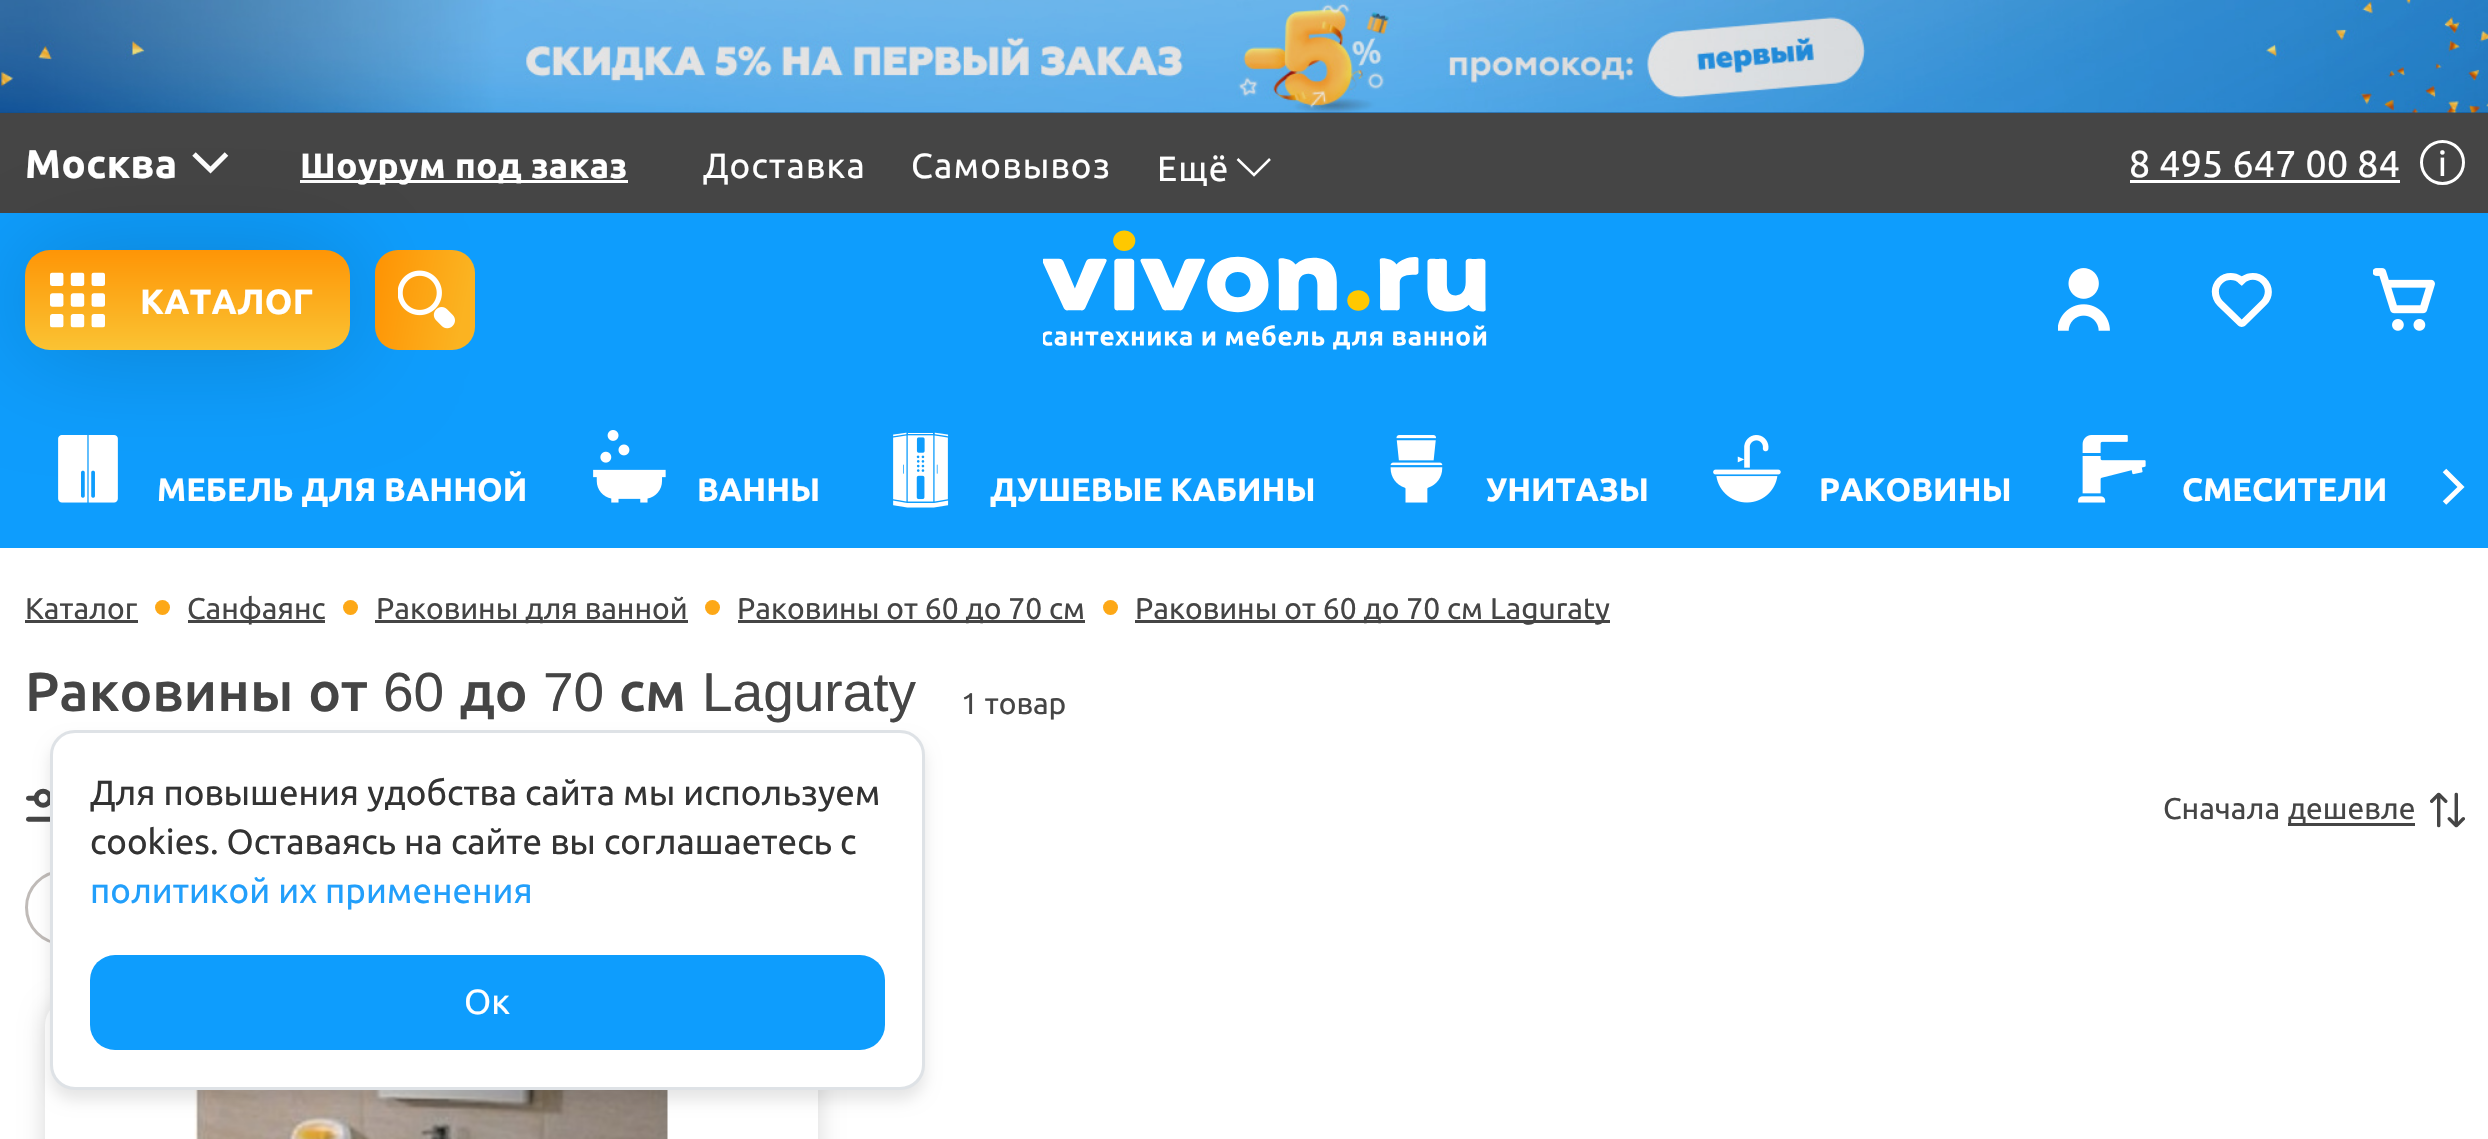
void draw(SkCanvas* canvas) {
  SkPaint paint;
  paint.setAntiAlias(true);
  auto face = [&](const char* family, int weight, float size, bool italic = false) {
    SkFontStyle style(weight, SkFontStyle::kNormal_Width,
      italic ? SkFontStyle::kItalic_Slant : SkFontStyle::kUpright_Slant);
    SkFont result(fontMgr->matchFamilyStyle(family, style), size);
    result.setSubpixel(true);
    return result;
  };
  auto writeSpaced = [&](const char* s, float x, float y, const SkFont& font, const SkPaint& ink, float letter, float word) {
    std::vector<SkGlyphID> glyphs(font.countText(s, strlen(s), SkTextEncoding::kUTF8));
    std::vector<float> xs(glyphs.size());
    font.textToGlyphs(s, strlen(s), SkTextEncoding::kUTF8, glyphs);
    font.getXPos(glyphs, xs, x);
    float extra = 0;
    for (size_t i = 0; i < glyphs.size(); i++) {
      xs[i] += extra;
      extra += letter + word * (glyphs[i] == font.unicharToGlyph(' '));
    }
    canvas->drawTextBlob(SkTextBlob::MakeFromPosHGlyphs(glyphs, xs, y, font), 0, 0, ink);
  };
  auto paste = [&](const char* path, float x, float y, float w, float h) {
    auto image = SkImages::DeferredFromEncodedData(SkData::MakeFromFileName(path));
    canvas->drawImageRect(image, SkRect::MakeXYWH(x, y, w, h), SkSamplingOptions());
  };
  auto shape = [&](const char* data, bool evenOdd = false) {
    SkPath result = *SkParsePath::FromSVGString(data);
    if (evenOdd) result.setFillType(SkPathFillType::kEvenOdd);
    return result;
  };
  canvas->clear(0xffffffff);
  paint.setColor(0xff104e89);
  canvas->drawRect(SkRect::MakeXYWH(0, 112, 2488, 1), paint);
  paste("img/1.png", 0, 0, 2488, 113);
  paint.setColor(0xff454545);
  canvas->drawRect(SkRect::MakeXYWH(0, 113, 2488, 100), paint);
  paint.setStroke(true);
  paint.setStrokeWidth(5);
  paint.setColor(0xffffffff);
  canvas->drawPath(shape("M194 154L210.5 170L226.5 154"), paint);
  paint.setStroke(false);
  canvas->drawRect(SkRect::MakeXYWH(300, 180, 328, 3), paint);
  paint.setStroke(true);
  paint.setStrokeWidth(2.5f);
  canvas->drawPath(shape("M1237.5 159L1254 175L1270 159"), paint);
  paint.setStroke(false);
  canvas->drawRect(SkRect::MakeXYWH(2130, 180, 270, 3), paint);
  paint.setStroke(true);
  paint.setStrokeWidth(3);
  canvas->drawCircle(2442.5f, 162.5f, 21, paint);
  paint.setStroke(false);
  paint.setColor(0xff0e9dfd);
  canvas->drawRect(SkRect::MakeXYWH(0, 213, 2488, 335), paint);
  paint.setColor(0x2e000101);
  paint.setMaskFilter(SkMaskFilter::MakeBlur(kNormal_SkBlurStyle, 54));
  canvas->drawRoundRect(SkRect::MakeXYWH(25, 250, 325, 100), 25, 25, paint);
  paint.setMaskFilter(nullptr);
  {
    const SkColor colors[] = {0xfffe9506, 0xfffac333};
    const float stops[] = {0, 1};
    const SkPoint ends[] = {{188, 250}, {188, 350}};
    paint.setShader(SkGradientShader::MakeLinear(ends, colors, stops, 2, SkTileMode::kClamp));
    paint.setAlpha(255);
  }
  canvas->drawRoundRect(SkRect::MakeXYWH(25, 250, 325, 100), 25, 25, paint);
  paste("img/2.png", 50, 272, 55, 56);
  {
    const SkColor colors[] = {0x00ff9101, 0xffff9101, 0xfffbb321};
    const float stops[] = {0, 0, 0.85f};
    const SkPoint ends[] = {{363, 288}, {483, 311}};
    paint.setShader(SkGradientShader::MakeLinear(ends, colors, stops, 3, SkTileMode::kClamp));
    paint.setAlpha(255);
  }
  canvas->drawRoundRect(SkRect::MakeXYWH(375, 250, 100, 100), 23, 23, paint);
  paste("img/3.png", 398, 270, 57, 59);
  paste("img/4.png", 1043, 230, 444, 120);
  paste("img/5.png", 2058, 268, 52, 63);
  paste("img/6.png", 2211, 273, 61, 54);
  paste("img/7.png", 2373, 268, 62, 63);
  paste("img/8.png", 58, 435, 60, 68);
  paste("img/9.png", 593, 430, 73, 73);
  paste("img/10.png", 893, 432, 56, 76);
  paste("img/11.png", 1390, 435, 53, 68);
  paste("img/12.png", 1713, 435, 68, 68);
  paste("img/13.png", 2078, 435, 68, 68);
  paint.setStroke(true);
  paint.setStrokeWidth(5);
  paint.setShader(nullptr);
  paint.setColor(0xffffffff);
  canvas->drawPath(shape("M2444.5 503L2461 487L2444.5 470.5"), paint);
  paint.setStroke(false);
  paint.setColor(0xff454545);
  canvas->drawRect(SkRect::MakeXYWH(25, 620, 113, 3), paint);
  paint.setColor(0xfffda817);
  canvas->drawCircle(162.5f, 607.5f, 7.5f, paint);
  paint.setColor(0xff454545);
  canvas->drawRect(SkRect::MakeXYWH(188, 620, 137, 3), paint);
  paint.setColor(0xfffda817);
  canvas->drawCircle(350.5f, 607.5f, 7.5f, paint);
  paint.setColor(0xff454545);
  canvas->drawRect(SkRect::MakeXYWH(375, 620, 313, 3), paint);
  paint.setColor(0xfffda817);
  canvas->drawCircle(712.5f, 607.5f, 7.5f, paint);
  paint.setColor(0xff454545);
  canvas->drawRect(SkRect::MakeXYWH(738, 620, 347, 3), paint);
  paint.setColor(0xfffda817);
  canvas->drawCircle(1110.5f, 607.5f, 7.5f, paint);
  paint.setColor(0xff454545);
  canvas->drawRect(SkRect::MakeXYWH(1135, 620, 475, 3), paint);
  paste("img/14.png", 26, 788, 24, 34);
  canvas->drawRect(SkRect::MakeXYWH(2288, 823, 127, 3), paint);
  paste("img/15.png", 2430, 792, 35, 36);
  paint.setStroke(true);
  paint.setStrokeWidth(3);
  paint.setColor(0xffc0bbb8);
  canvas->drawRoundRect(SkRect::MakeXYWH(26.5f, 871.5f, 467, 72), 36, 36, paint);
  paint.setStroke(false);
  paint.setColor(0x26000000);
  paint.setMaskFilter(SkMaskFilter::MakeBlur(kNormal_SkBlurStyle, 12.5f));
  canvas->drawRoundRect(SkRect::MakeXYWH(45, 1003, 773, 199), 25, 25, paint);
  paint.setMaskFilter(nullptr);
  paint.setColor(0xffffffff);
  canvas->drawRoundRect(SkRect::MakeXYWH(45, 1000, 773, 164), 25, 25, paint);
  paste("img/16.png", 194, 1090, 474, 49);
  paint.setColor(0x1a000000);
  paint.setMaskFilter(SkMaskFilter::MakeBlur(kNormal_SkBlurStyle, 7.5f));
  canvas->drawRoundRect(SkRect::MakeXYWH(50, 740, 875, 360), 25, 25, paint);
  paint.setMaskFilter(nullptr);
  paint.setColor(0xffffffff);
  canvas->drawRoundRect(SkRect::MakeXYWH(51.5f, 731.5f, 872, 357), 23.5f, 23.5f, paint);
  paint.setStroke(true);
  paint.setColor(0xffdee2e6);
  canvas->drawRoundRect(SkRect::MakeXYWH(51.5f, 731.5f, 872, 357), 23.5f, 23.5f, paint);
  paint.setStroke(false);
  paint.setColor(0xff0e9dfd);
  canvas->drawRoundRect(SkRect::MakeXYWH(90, 955, 795, 95), 25, 25, paint);
  auto f0 = face("Ubuntu", 700, 40);
  paint.setColor(0xffffffff);
  writeSpaced("Москва", 25, 178, f0, paint, 0.5f, 0);
  auto f1 = face("Ubuntu", 700, 35);
  writeSpaced("Шоурум под заказ", 300, 178, f1, paint, 0.5f, 0);
  auto f2 = face("Ubuntu", 400, 35);
  {
    const struct { const char* s; float x, y; } items[] = {
      {"Доставка", 703, 178},
      {"Самовывоз", 911, 178},
      {"Ещё", 1157, 181},
    };
    for (auto [s, x, y] : items) {
      writeSpaced(s, x, y, f2, paint, 1.25f, 0);
    }
  }
  auto f3 = face("Ubuntu", 400, 37.5f);
  writeSpaced("8 495 647 00 84", 2129, 177, f3, paint, 0.25f, 0);
  canvas->drawString("i", 2438, 176, f2, paint);
  writeSpaced("КАТАЛОГ", 140, 314, f1, paint, 0.25f, 0);
  auto f4 = face("Ubuntu", 700, 32.5f);
  {
    const struct { const char* s; float x, y; } items[] = {
      {"МЕБЕЛЬ ДЛЯ ВАННОЙ", 157, 501},
      {"ВАННЫ", 697, 501},
      {"ДУШЕВЫЕ КАБИНЫ", 990, 501},
      {"УНИТАЗЫ", 1486, 501},
      {"РАКОВИНЫ", 1819, 501},
      {"СМЕСИТЕЛИ", 2182, 501},
    };
    for (auto [s, x, y] : items) {
      canvas->drawString(s, x, y, f4, paint);
    }
  }
  auto f5 = face("Ubuntu", 400, 30);
  paint.setColor(0xff454545);
  {
    const struct { const char* s; float x, y; } items[] = {
      {"Каталог", 25, 619},
      {"Санфаянс", 187, 619},
      {"Раковины для ванной", 376, 619},
      {"Раковины от 60 до 70 см", 737, 619},
      {"Раковины от 60 до 70 см Laguraty", 1135, 619},
    };
    for (auto [s, x, y] : items) {
      canvas->drawString(s, x, y, f5, paint);
    }
  }
  auto f6 = face("Ubuntu", 500, 55);
  writeSpaced("Раковины от", 25, 711, f6, paint, 0, 2);
  auto f7 = face("Liberation Sans", 400, 55);
  canvas->drawString("60", 383, 711, f7, paint);
  canvas->drawString("до", 460, 711, f6, paint);
  canvas->drawString("70", 543, 711, f7, paint);
  canvas->drawString("см", 619, 711, f6, paint);
  canvas->drawString("Laguraty", 702, 711, f7, paint);
  {
    const struct { const char* s; float x, y; } items[] = {
      {"1 товар", 961, 714},
      {"Сначала", 2163, 819},
      {"дешевле", 2288, 819},
    };
    for (auto [s, x, y] : items) {
      canvas->drawString(s, x, y, f5, paint);
    }
  }
  paint.setColor(0xff333333);
  canvas->drawString("Для повышения удобства сайта мы используем", 90, 805, f2, paint);
  canvas->drawString("cookies. Оставаясь на сайте вы соглашаетесь с", 90, 854, f2, paint);
  paint.setColor(0xff229ffb);
  canvas->drawString("политикой их применения", 90, 903, f2, paint);
  paint.setColor(0xffffffff);
  canvas->drawString("Ок", 464, 1014, f2, paint);
}
